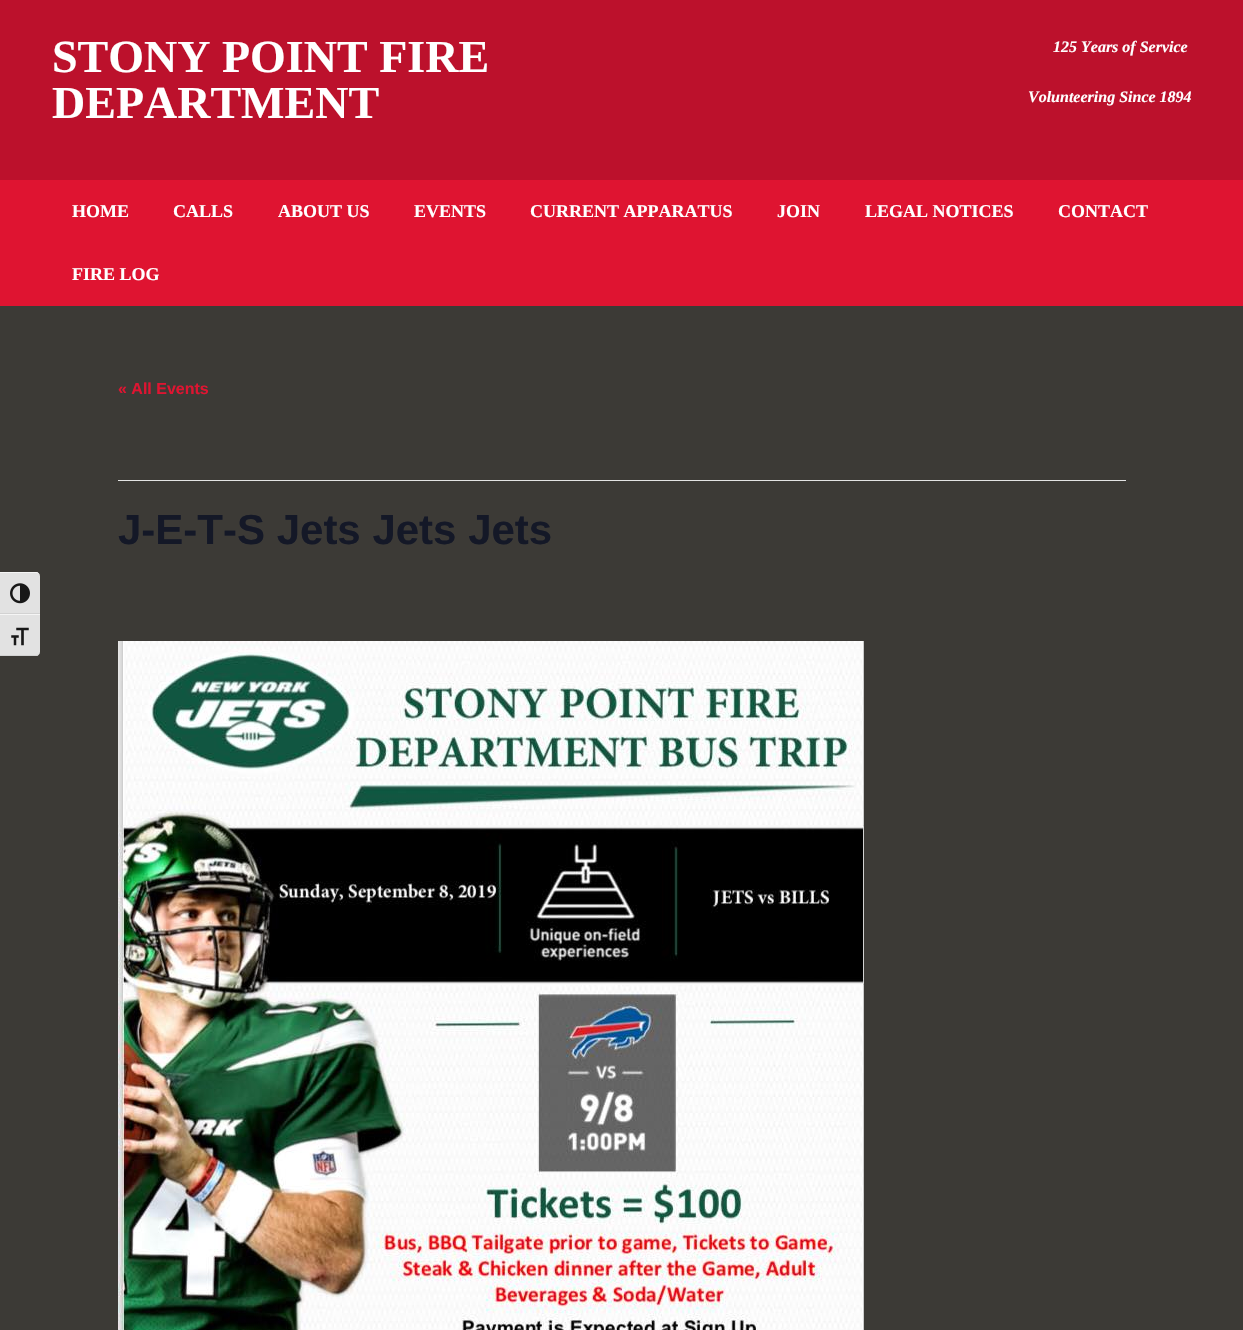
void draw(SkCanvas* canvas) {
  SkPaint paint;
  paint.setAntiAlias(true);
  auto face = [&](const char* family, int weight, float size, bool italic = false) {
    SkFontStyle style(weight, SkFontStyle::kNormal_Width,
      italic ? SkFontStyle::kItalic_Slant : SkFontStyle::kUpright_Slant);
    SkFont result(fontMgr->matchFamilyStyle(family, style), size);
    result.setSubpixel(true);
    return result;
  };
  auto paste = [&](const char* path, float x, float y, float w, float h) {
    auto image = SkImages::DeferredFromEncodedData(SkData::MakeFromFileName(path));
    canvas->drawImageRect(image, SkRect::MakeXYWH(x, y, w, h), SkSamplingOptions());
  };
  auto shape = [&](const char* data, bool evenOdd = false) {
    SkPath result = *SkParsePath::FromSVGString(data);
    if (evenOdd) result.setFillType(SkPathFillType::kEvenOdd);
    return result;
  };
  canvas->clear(0xff3c3a36);
  {
    const struct { float x, y, w, h; SkColor color; } items[] = {
      {0, 0, 1243, 180, 0xffbc112c},
      {0, 180, 1243, 126, 0xffdf1431},
      {118, 480, 1008, 1, 0xffe4e4e4},
    };
    for (auto [x, y, w, h, color] : items) {
      paint.setColor(color);
      canvas->drawRect(SkRect::MakeXYWH(x, y, w, h), paint);
    }
  }
  paste("img/1.png", 118, 641, 746, 689);
  paint.setColor(0xffe2e2e2);
  canvas->drawPath(shape("M0 572H36C38 572 40 574 40 576V614H0Z"), paint);
  paint.setColor(0xfff5f5f5);
  canvas->drawPath(shape("M0 572V573H36C38 573 40 574 40 576C40 574 38 572 36 572Z"), paint);
  paint.setColor(0xffd2d2d2);
  canvas->drawRect(SkRect::MakeXYWH(0, 613, 40, 1), paint);
  paste("img/2.png", 10, 583, 20, 21);
  paint.setColor(0xffe2e2e2);
  canvas->drawPath(shape("M0 614H40V652C40 654 38 656 36 656H0Z"), paint);
  paint.setColor(0xfff5f5f5);
  canvas->drawRect(SkRect::MakeXYWH(0, 614, 40, 1), paint);
  paint.setColor(0xffd2d2d2);
  canvas->drawPath(shape("M0 655V656H36C38 656 40 654 40 652C40 654 38 655 36 655Z"), paint);
  paste("img/3.png", 11, 627, 18, 19);
  auto f0 = face("Liberation Serif", 700, 46);
  paint.setColor(0xffffffff);
  canvas->drawString("STONY POINT FIRE", 52, 72, f0, paint);
  canvas->drawString("DEPARTMENT", 52, 118, f0, paint);
  auto f1 = face("Liberation Serif", 700, 16, true);
  canvas->drawString("125 Years of Service", 1053, 52, f1, paint);
  canvas->drawString("Volunteering Since 1894", 1028, 102, f1, paint);
  auto f2 = face("Liberation Serif", 700, 18);
  {
    const struct { const char* s; float x, y; } items[] = {
      {"HOME", 72, 217},
      {"CALLS", 173, 217},
      {"ABOUT US", 278, 217},
      {"EVENTS", 414, 217},
      {"CURRENT APPARATUS", 530, 217},
      {"JOIN", 777, 217},
      {"LEGAL NOTICES", 865, 217},
      {"CONTACT", 1058, 217},
      {"FIRE LOG", 72, 280},
    };
    for (auto [s, x, y] : items) {
      canvas->drawString(s, x, y, f2, paint);
    }
  }
  auto f3 = face("Liberation Sans", 700, 16);
  paint.setColor(0xffdf1431);
  canvas->drawString("« All Events", 118, 394, f3, paint);
  auto f4 = face("Liberation Sans", 700, 42);
  paint.setColor(0xff141827);
  canvas->drawString("J-E-T-S Jets Jets Jets", 118, 544, f4, paint);
}
